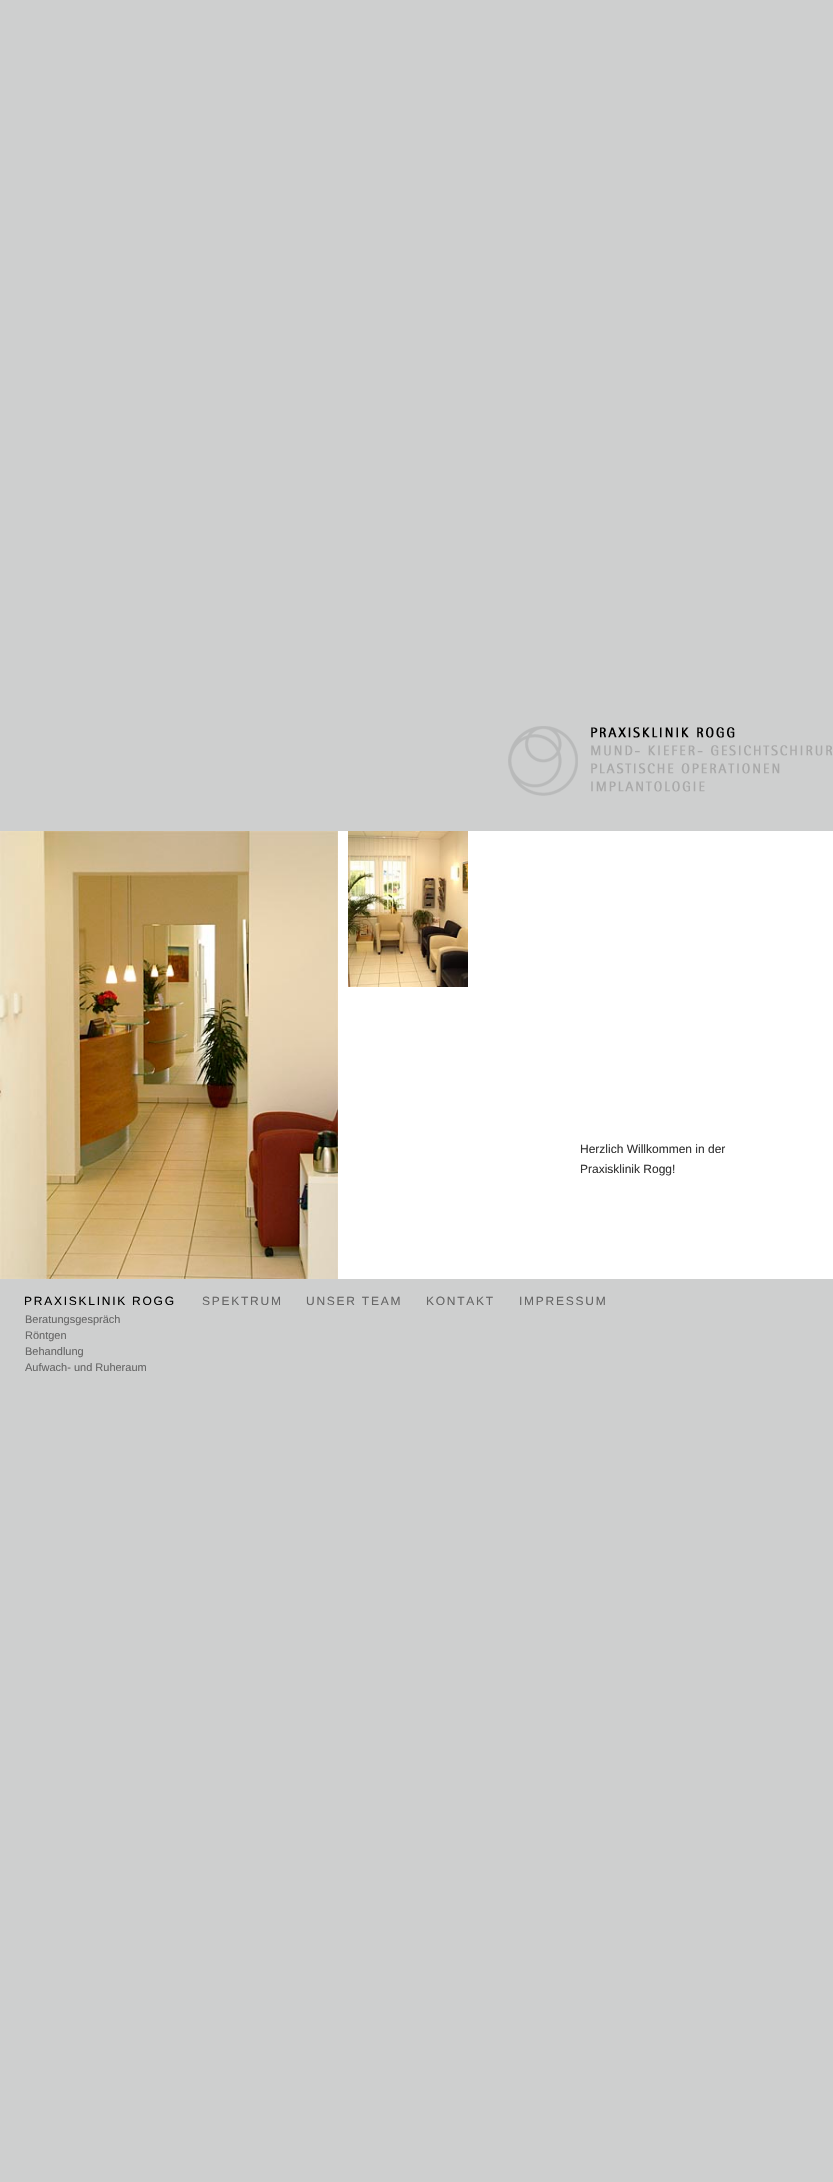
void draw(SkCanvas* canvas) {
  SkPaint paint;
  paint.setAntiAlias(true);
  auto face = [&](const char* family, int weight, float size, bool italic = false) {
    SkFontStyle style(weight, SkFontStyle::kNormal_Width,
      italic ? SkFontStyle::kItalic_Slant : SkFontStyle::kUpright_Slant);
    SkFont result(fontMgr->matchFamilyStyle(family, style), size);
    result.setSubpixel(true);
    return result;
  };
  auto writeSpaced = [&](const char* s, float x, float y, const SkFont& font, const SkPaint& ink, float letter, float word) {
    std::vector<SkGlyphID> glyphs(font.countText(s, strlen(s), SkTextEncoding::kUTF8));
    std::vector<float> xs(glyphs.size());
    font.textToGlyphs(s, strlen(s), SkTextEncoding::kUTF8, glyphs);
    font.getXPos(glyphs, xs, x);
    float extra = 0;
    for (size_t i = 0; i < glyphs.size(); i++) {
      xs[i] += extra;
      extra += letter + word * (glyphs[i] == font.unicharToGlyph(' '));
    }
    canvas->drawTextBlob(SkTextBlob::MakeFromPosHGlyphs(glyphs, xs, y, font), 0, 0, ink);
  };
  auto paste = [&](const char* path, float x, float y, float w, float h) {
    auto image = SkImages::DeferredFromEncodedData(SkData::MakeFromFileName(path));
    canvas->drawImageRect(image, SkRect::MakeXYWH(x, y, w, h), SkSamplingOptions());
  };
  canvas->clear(0xffcecfcf);
  paste("img/1.png", 6, 726, 827, 553);
  paste("img/2.png", 0, 831, 338, 448);
  paste("img/3.png", 348, 831, 120, 156);
  auto f0 = face("Liberation Sans", 400, 12);
  paint.setColor(0xff333333);
  canvas->drawString("Herzlich Willkommen in der", 580, 1153, f0, paint);
  canvas->drawString("Praxisklinik Rogg!", 580, 1173, f0, paint);
  paint.setColor(0xff000000);
  writeSpaced("PRAXISKLINIK ROGG", 24, 1305, f0, paint, 1.75f, 0);
  paint.setColor(0xff666666);
  {
    const struct { const char* s; float x, y; } items[] = {
      {"SPEKTRUM", 202, 1305},
      {"UNSER TEAM", 306, 1305},
      {"KONTAKT", 426, 1305},
      {"IMPRESSUM", 519, 1305},
    };
    for (auto [s, x, y] : items) {
      writeSpaced(s, x, y, f0, paint, 1.75f, 0);
    }
  }
  auto f1 = face("Liberation Sans", 400, 11);
  {
    const struct { const char* s; float x, y; } items[] = {
      {"Beratungsgespräch", 25, 1323},
      {"Röntgen", 25, 1339},
      {"Behandlung", 25, 1355},
      {"Aufwach- und Ruheraum", 25, 1371},
    };
    for (auto [s, x, y] : items) {
      canvas->drawString(s, x, y, f1, paint);
    }
  }
}
